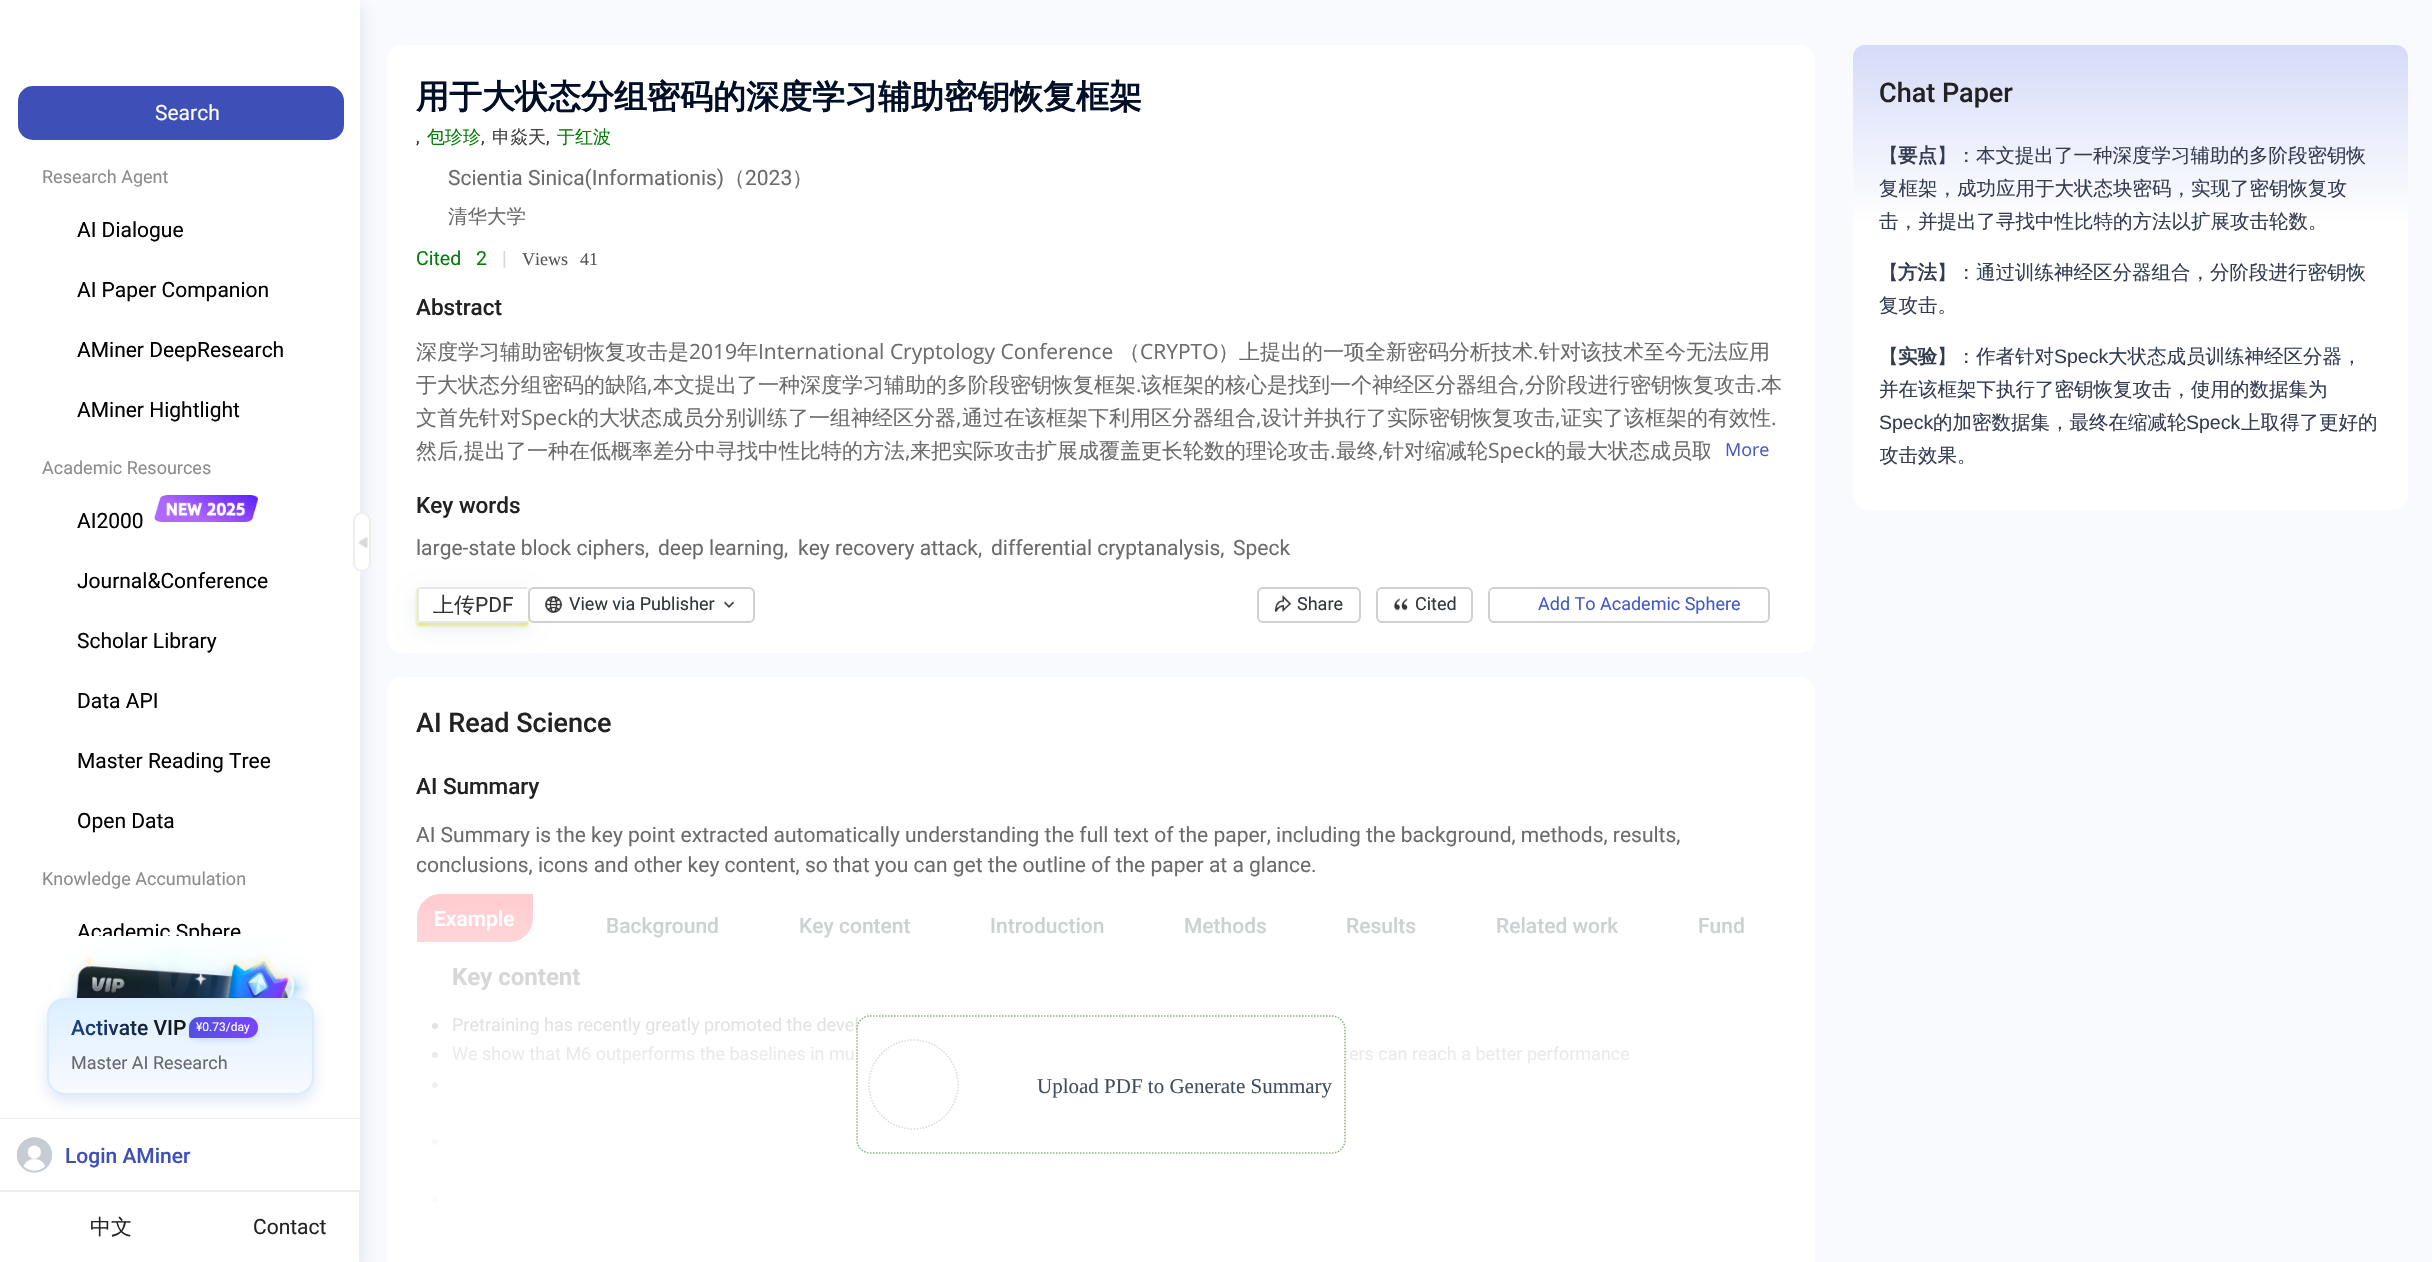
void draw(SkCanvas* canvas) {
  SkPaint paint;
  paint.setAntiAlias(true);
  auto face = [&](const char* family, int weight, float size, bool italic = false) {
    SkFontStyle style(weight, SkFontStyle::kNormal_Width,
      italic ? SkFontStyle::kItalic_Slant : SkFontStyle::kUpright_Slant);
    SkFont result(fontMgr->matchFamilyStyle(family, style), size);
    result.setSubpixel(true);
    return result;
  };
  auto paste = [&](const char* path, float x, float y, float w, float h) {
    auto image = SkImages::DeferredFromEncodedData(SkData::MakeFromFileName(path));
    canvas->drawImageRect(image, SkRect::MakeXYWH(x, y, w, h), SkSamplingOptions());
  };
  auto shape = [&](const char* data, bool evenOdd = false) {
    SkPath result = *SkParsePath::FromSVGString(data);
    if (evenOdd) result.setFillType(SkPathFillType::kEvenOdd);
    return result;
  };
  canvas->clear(0xffffffff);
  paint.setColor(0xfff9fafd);
  canvas->drawRect(SkRect::MakeXYWH(360, 0, 2072, 1262), paint);
  canvas->save();
  canvas->clipRect(SkRect::MakeXYWH(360, 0, 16, 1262));
  paint.setColor(0x80cccfe7);
  paint.setMaskFilter(SkMaskFilter::MakeBlur(kNormal_SkBlurStyle, 7.5f));
  canvas->drawRect(SkRect::MakeXYWH(3, 6, 360, 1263), paint);
  paint.setMaskFilter(nullptr);
  canvas->restore();
  paint.setColor(0xff3e4fb8);
  canvas->drawRoundRect(SkRect::MakeXYWH(18, 86, 326, 54), 15, 15, paint);
  paste("img/1.png", 154, 495, 104, 27);
  paint.setColor(0xffffffff);
  canvas->drawRoundRect(SkRect::MakeXYWH(354, 513, 16, 58), 8, 8, paint);
  paint.setStroke(true);
  paint.setStrokeWidth(2);
  paint.setColor(0xffeeeeee);
  canvas->drawRoundRect(SkRect::MakeXYWH(354, 513, 16, 58), 8, 8, paint);
  paste("img/2.png", 358, 537, 10, 11);
  paint.setStroke(false);
  canvas->drawRect(SkRect::MakeXYWH(359, 1191, 1, 71), paint);
  canvas->drawRect(SkRect::MakeXYWH(0, 1190, 360, 2), paint);
  paste("img/4.png", 16, 1137, 36, 36);
  paint.setColor(0xffffffff);
  canvas->drawRoundRect(SkRect::MakeXYWH(387, 45, 1428, 608), 15, 15, paint);
  canvas->save();
  canvas->clipPath(shape("M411 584H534V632H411ZM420 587H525C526.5 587 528 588.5 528 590V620C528 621.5 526.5 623 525 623H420C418.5 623 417 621.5 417 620V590C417 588.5 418.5 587 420 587Z", true), true);
  paint.setColor(0xffdfdf0b);
  paint.setMaskFilter(SkMaskFilter::MakeBlur(kNormal_SkBlurStyle, 1.5f));
  canvas->drawRoundRect(SkRect::MakeXYWH(417, 590, 111, 36), 3, 3, paint);
  paint.setMaskFilter(nullptr);
  canvas->restore();
  canvas->save();
  canvas->clipPath(shape("M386 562H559V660H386ZM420 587H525C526.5 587 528 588.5 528 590V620C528 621.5 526.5 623 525 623H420C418.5 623 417 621.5 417 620V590C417 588.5 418.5 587 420 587Z", true), true);
  paint.setColor(0xffe8edf4);
  paint.setMaskFilter(SkMaskFilter::MakeBlur(kNormal_SkBlurStyle, 10));
  canvas->drawRoundRect(SkRect::MakeXYWH(417, 593, 111, 36), 3, 3, paint);
  paint.setMaskFilter(nullptr);
  canvas->restore();
  {
    const struct { float x, y, w, h; SkColor color; } items[] = {
      {419, 587, 108, 2, 0xffe7e7e7},
      {419, 621, 108, 2, 0xffe7e7e7},
      {417, 588, 2, 33, 0xffe7e7e7},
    };
    for (auto [x, y, w, h, color] : items) {
      paint.setColor(color);
      canvas->drawRect(SkRect::MakeXYWH(x, y, w, h), paint);
    }
  }
  paint.setColor(0xffffffff);
  canvas->drawRoundRect(SkRect::MakeXYWH(529, 588, 225, 34), 5, 5, paint);
  paint.setStroke(true);
  paint.setColor(0xffced0d3);
  canvas->drawRoundRect(SkRect::MakeXYWH(529, 588, 225, 34), 5, 5, paint);
  paste("img/5.png", 545, 596, 17, 17);
  paste("img/6.png", 723, 601, 12, 7);
  canvas->drawRoundRect(SkRect::MakeXYWH(1258, 588, 102, 34), 5, 5, paint);
  paste("img/7.png", 1275, 595, 17, 17);
  canvas->drawRoundRect(SkRect::MakeXYWH(1377, 588, 95, 34), 5, 5, paint);
  paste("img/8.png", 1394, 598, 14, 13);
  canvas->drawRoundRect(SkRect::MakeXYWH(1489, 588, 280, 34), 5, 5, paint);
  paint.setStroke(false);
  paint.setColor(0xffffffff);
  canvas->drawPath(shape("M402 677H1800C1808.5 677 1815 683.5 1815 692V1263H387V692C387 683.5 393.5 677 402 677Z"), paint);
  paint.setColor(0xffffccd0);
  canvas->drawPath(shape("M441 894H533V918C533 931.5 522.5 942 509 942H417V918C417 904.5 427.5 894 441 894Z"), paint);
  paint.setColor(0xffc2c2c2);
  canvas->drawCircle(435, 1026, 3, paint);
  canvas->drawCircle(435, 1055, 3, paint);
  canvas->drawCircle(435, 1085, 3, paint);
  canvas->drawCircle(435, 1142, 3, paint);
  canvas->drawCircle(435, 1199, 3, paint);
  paint.setColor(0xffffffff);
  canvas->drawRoundRect(SkRect::MakeXYWH(1853, 45, 555, 465), 15, 15, paint);
  {
    const SkColor colors[] = {0xffd5dbf8, 0x00d5dbf8};
    const float stops[] = {0, 1};
    const SkPoint ends[] = {{2130, 45}, {2130, 225}};
    paint.setShader(SkGradientShader::MakeLinear(ends, colors, stops, 2, SkTileMode::kClamp));
    paint.setAlpha(255);
  }
  canvas->drawPath(shape("M1865 45H2396C2402.5 45 2408 50.5 2408 57V225H1853V57C1853 50.5 1858.5 45 1865 45Z"), paint);
  auto f0 = face("Roboto", 400, 21);
  paint.setShader(nullptr);
  paint.setColor(0xffffffff);
  canvas->drawString("Search", 155, 120, f0, paint);
  auto f1 = face("Roboto", 400, 18);
  paint.setColor(0xff8c8c8c);
  canvas->drawString("Research Agent", 42, 183, f1, paint);
  paint.setColor(0xff000000);
  {
    const struct { const char* s; float x, y; } items[] = {
      {"AI Dialogue", 77, 237},
      {"AI Paper Companion", 77, 297},
      {"AMiner DeepResearch", 77, 357},
      {"AMiner Hightlight", 77, 417},
    };
    for (auto [s, x, y] : items) {
      canvas->drawString(s, x, y, f0, paint);
    }
  }
  paint.setColor(0xff8c8c8c);
  canvas->drawString("Academic Resources", 42, 474, f1, paint);
  paint.setColor(0xff000000);
  {
    const struct { const char* s; float x, y; } items[] = {
      {"AI2000", 77, 528},
      {"Journal&Conference", 77, 588},
      {"Scholar Library", 77, 648},
      {"Data API", 77, 708},
      {"Master Reading Tree", 77, 768},
      {"Open Data", 77, 828},
    };
    for (auto [s, x, y] : items) {
      canvas->drawString(s, x, y, f0, paint);
    }
  }
  paint.setColor(0xff8c8c8c);
  canvas->drawString("Knowledge Accumulation", 42, 885, f1, paint);
  canvas->save();
  canvas->clipRect(SkRect::MakeXYWH(18, 905, 326, 31));
  paint.setColor(0xff000000);
  canvas->drawString("Academic Sphere", 77, 939, f0, paint);
  canvas->restore();
  paste("img/3.png", 59, 935, 253, 67);
  paint.setColor(0x240b4db2);
  paint.setMaskFilter(SkMaskFilter::MakeBlur(kNormal_SkBlurStyle, 7.5f));
  canvas->drawRoundRect(SkRect::MakeXYWH(47, 1004, 267, 97), 18, 18, paint);
  paint.setMaskFilter(nullptr);
  canvas->save();
  canvas->clipPath(shape("M65 998H296C306 998 314 1006 314 1016V1077C314 1087 306 1095 296 1095H65C55 1095 47 1087 47 1077V1016C47 1006 55 998 65 998Z"), true);
  {
    const SkColor colors[] = {0xffdcefff, 0xfff8faff};
    const float stops[] = {0, 1};
    const SkPoint ends[] = {{180, 999}, {180, 1094}};
    paint.setShader(SkGradientShader::MakeLinear(ends, colors, stops, 2, SkTileMode::kClamp));
    paint.setAlpha(255);
  }
  canvas->drawRect(SkRect::MakeXYWH(47, 999, 267, 95), paint);
  canvas->restore();
  paint.setStroke(true);
  paint.setShader(nullptr);
  paint.setColor(0xffd8ebff);
  canvas->drawRoundRect(SkRect::MakeXYWH(48, 999, 265, 95), 17, 17, paint);
  auto f2 = face("Roboto", 500, 21);
  paint.setStroke(false);
  {
    const SkColor colors[] = {0xff184388, 0xff141414};
    const float stops[] = {0.02f, 0.95f};
    const SkPoint ends[] = {{70, 1026}, {186, 1030}};
    paint.setShader(SkGradientShader::MakeLinear(ends, colors, stops, 2, SkTileMode::kClamp));
    paint.setAlpha(255);
  }
  canvas->drawString("Activate VIP", 71, 1035, f2, paint);
  paint.setShader(nullptr);
  paint.setColor(0x244e48fe);
  paint.setMaskFilter(SkMaskFilter::MakeBlur(kNormal_SkBlurStyle, 2.5f));
  canvas->drawRoundRect(SkRect::MakeXYWH(189, 1020, 69, 21), 10.5f, 10.5f, paint);
  paint.setMaskFilter(nullptr);
  {
    const SkColor colors[] = {0xff5250e4, 0xff7a44ff};
    const float stops[] = {0, 1};
    const SkPoint ends[] = {{189, 1028}, {258, 1028}};
    paint.setShader(SkGradientShader::MakeLinear(ends, colors, stops, 2, SkTileMode::kClamp));
    paint.setAlpha(255);
  }
  canvas->drawPath(shape("M199.5 1017H247.5C253.5 1017 258 1021.5 258 1027.5C258 1033.5 253.5 1038 247.5 1038H191C190 1038 189 1037 189 1036V1027.5C189 1021.5 193.5 1017 199.5 1017Z"), paint);
  auto f3 = face("Roboto", 400, 12);
  paint.setShader(nullptr);
  paint.setColor(0xffffffff);
  canvas->drawString("¥0.73/day", 196, 1031, f3, paint);
  paint.setColor(0xff686772);
  canvas->drawString("Master AI Research", 71, 1069, f1, paint);
  paint.setColor(0xffeeeeee);
  canvas->drawRect(SkRect::MakeXYWH(0, 1118, 360, 1), paint);
  paint.setColor(0xff3e4fb8);
  canvas->drawString("Login AMiner", 65, 1163, f2, paint);
  auto f4 = face("WenQuanYi Zen Hei", 500, 21);
  paint.setColor(0xff222222);
  canvas->drawString("中文", 90, 1234, f4, paint);
  canvas->drawString("Contact", 253, 1234, f0, paint);
  auto f5 = face("WenQuanYi Zen Hei", 700, 33);
  paint.setColor(0xff000e28);
  canvas->drawString("用于大状态分组密码的深度学习辅助密钥恢复框架", 416, 108, f5, paint);
  paint.setColor(0xff333333);
  canvas->drawString(",", 416, 143, f1, paint);
  auto f6 = face("WenQuanYi Zen Hei", 500, 18);
  paint.setColor(0xff067c08);
  canvas->drawString("包珍珍", 427, 143, f6, paint);
  paint.setColor(0xff333333);
  canvas->drawString(",", 481, 143, f1, paint);
  paint.setColor(0xff444444);
  canvas->drawString("申焱天", 492, 143, f6, paint);
  paint.setColor(0xff333333);
  canvas->drawString(",", 546, 143, f1, paint);
  paint.setColor(0xff067c08);
  canvas->drawString("于红波", 557, 143, f6, paint);
  paint.setColor(0xff6b6b6b);
  canvas->drawString("Scientia Sinica(Informationis)", 448, 185, f0, paint);
  canvas->drawString("（", 724, 185, f4, paint);
  canvas->drawString("2023", 745, 185, f0, paint);
  canvas->drawString("）", 792, 185, f4, paint);
  auto f7 = face("WenQuanYi Zen Hei", 500, 19.5f);
  canvas->drawString("清华大学", 448, 223, f7, paint);
  auto f8 = face("Roboto", 400, 19.5f);
  paint.setColor(0xff067c08);
  canvas->drawString("Cited", 416, 265, f8, paint);
  canvas->drawString("2", 476, 265, f8, paint);
  paint.setColor(0xffd5d5d5);
  canvas->drawString("|", 502, 265, f8, paint);
  auto f9 = face("Liberation Serif", 400, 18);
  paint.setColor(0xff545454);
  canvas->drawString("Views", 522, 265, f9, paint);
  canvas->drawString("41", 580, 265, f9, paint);
  auto f10 = face("Roboto", 500, 22.5f);
  paint.setColor(0xff222222);
  canvas->drawString("Abstract", 416, 315, f10, paint);
  paint.setColor(0xff6b6b6b);
  canvas->drawString("深度学习辅助密钥恢复攻击是", 416, 359, f4, paint);
  auto f11 = face("Open Sans", 400, 21);
  canvas->drawString("2019", 689, 359, f11, paint);
  canvas->drawString("年", 737, 359, f4, paint);
  canvas->drawString("International Cryptology Conference", 758, 359, f11, paint);
  canvas->drawString("（", 1119, 359, f4, paint);
  canvas->drawString("CRYPTO", 1140, 359, f11, paint);
  canvas->drawString("）上提出的一项全新密码分析技术", 1218, 359, f4, paint);
  canvas->drawString(".", 1533, 359, f11, paint);
  canvas->drawString("针对该技术至今无法应用", 1539, 359, f4, paint);
  canvas->drawString("于大状态分组密码的缺陷", 416, 392, f4, paint);
  canvas->drawString(",", 647, 392, f11, paint);
  canvas->drawString("本文提出了一种深度学习辅助的多阶段密钥恢复框架", 653, 392, f4, paint);
  canvas->drawString(".", 1136, 392, f11, paint);
  canvas->drawString("该框架的核心是找到一个神经区分器组合", 1141, 392, f4, paint);
  canvas->drawString(",", 1519, 392, f11, paint);
  canvas->drawString("分阶段进行密钥恢复攻击", 1525, 392, f4, paint);
  canvas->drawString(".", 1756, 392, f11, paint);
  canvas->drawString("本", 1761, 392, f4, paint);
  canvas->drawString("文首先针对", 416, 425, f4, paint);
  canvas->drawString("Speck", 521, 425, f11, paint);
  canvas->drawString("的大状态成员分别训练了一组神经区分器", 578, 425, f4, paint);
  canvas->drawString(",", 956, 425, f11, paint);
  canvas->drawString("通过在该框架下利用区分器组合", 962, 425, f4, paint);
  canvas->drawString(",", 1256, 425, f11, paint);
  canvas->drawString("设计并执行了实际密钥恢复攻击", 1261, 425, f4, paint);
  canvas->drawString(",", 1555, 425, f11, paint);
  canvas->drawString("证实了该框架的有效性", 1561, 425, f4, paint);
  canvas->drawString(".", 1771, 425, f11, paint);
  canvas->drawString("然后", 416, 458, f4, paint);
  canvas->drawString(",", 458, 458, f11, paint);
  canvas->drawString("提出了一种在低概率差分中寻找中性比特的方法", 464, 458, f4, paint);
  canvas->drawString(",", 905, 458, f11, paint);
  canvas->drawString("来把实际攻击扩展成覆盖更长轮数的理论攻击", 910, 458, f4, paint);
  canvas->drawString(".", 1330, 458, f11, paint);
  canvas->drawString("最终", 1336, 458, f4, paint);
  canvas->drawString(",", 1378, 458, f11, paint);
  canvas->drawString("针对缩减轮", 1383, 458, f4, paint);
  canvas->drawString("Speck", 1488, 458, f11, paint);
  canvas->drawString("的最大状态成员取", 1545, 458, f4, paint);
  paint.setColor(0xffffffff);
  canvas->drawRect(SkRect::MakeXYWH(1710, 443, 3, 18), paint);
  auto f12 = face("Open Sans", 400, 18);
  paint.setColor(0xff4759c5);
  canvas->drawString("More", 1725, 456, f12, paint);
  paint.setColor(0xff222222);
  canvas->drawString("Key words", 416, 513, f10, paint);
  paint.setColor(0xff6b6b6b);
  {
    const struct { const char* s; float x, y; } items[] = {
      {"large-state block ciphers,", 416, 555},
      {"deep learning,", 658, 555},
      {"key recovery attack,", 798, 555},
      {"differential cryptanalysis,", 991, 555},
      {"Speck", 1233, 555},
    };
    for (auto [s, x, y] : items) {
      canvas->drawString(s, x, y, f0, paint);
    }
  }
  paint.setColor(0xff333333);
  canvas->drawString("上传", 433, 612, f4, paint);
  canvas->drawString("PDF", 475, 612, f0, paint);
  paint.setColor(0xff31373d);
  {
    const struct { const char* s; float x, y; } items[] = {
      {"View via Publisher", 569, 610},
      {"Share", 1297, 610},
      {"Cited", 1415, 610},
    };
    for (auto [s, x, y] : items) {
      canvas->drawString(s, x, y, f1, paint);
    }
  }
  paint.setColor(0xff4759c5);
  canvas->drawString("Add To Academic Sphere", 1538, 610, f1, paint);
  auto f13 = face("Roboto", 500, 27);
  paint.setColor(0xff222222);
  canvas->drawString("AI Read Science", 416, 732, f13, paint);
  canvas->drawString("AI Summary", 416, 794, f10, paint);
  paint.setColor(0xff6b6b6b);
  canvas->drawString("AI Summary is the key point extracted automatically understanding the full text of the paper, including the background, methods, results,", 416, 842, f0, paint);
  canvas->drawString("conclusions, icons and other key content, so that you can get the outline of the paper at a glance.", 416, 872, f0, paint);
  auto f14 = face("Roboto", 600, 21);
  paint.setColor(0xffffffff);
  canvas->drawString("Example", 434, 926, f14, paint);
  paint.setColor(0xffc6cacd);
  {
    const struct { const char* s; float x, y; } items[] = {
      {"Background", 606, 933},
      {"Key content", 799, 933},
      {"Introduction", 990, 933},
      {"Methods", 1184, 933},
      {"Results", 1346, 933},
      {"Related work", 1496, 933},
      {"Fund", 1698, 933},
    };
    for (auto [s, x, y] : items) {
      canvas->drawString(s, x, y, f2, paint);
    }
  }
  auto f15 = face("Roboto", 700, 24);
  paint.setColor(0xffc2c2c2);
  canvas->drawString("Key content", 452, 985, f15, paint);
  {
    const struct { const char* s; float x, y; } items[] = {
      {"Pretraining has recently greatly promoted the devel", 452, 1031},
      {"We show that M6 outperforms the baselines in mu", 452, 1060},
      {"ters can reach a better performance", 1343, 1060},
    };
    for (auto [s, x, y] : items) {
      canvas->drawString(s, x, y, f1, paint);
    }
  }
  {
    const SkColor colors[] = {0x00ffffff, 0xccffffff, 0xffffffff};
    const float stops[] = {0, 0.52f, 1};
    const SkPoint ends[] = {{1101, 894}, {1101, 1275}};
    paint.setShader(SkGradientShader::MakeLinear(ends, colors, stops, 3, SkTileMode::kClamp));
    paint.setAlpha(255);
  }
  canvas->drawRect(SkRect::MakeXYWH(417, 906, 1326, 296), paint);
  paint.setShader(nullptr);
  paint.setColor(0xffffffff);
  canvas->drawRoundRect(SkRect::MakeXYWH(857, 1016, 489, 138), 14, 14, paint);
  paint.setStroke(true);
  paint.setStrokeWidth(1.5f);
  paint.setColor(0xff8fae7c);
  paint.setPathEffect(SkDashPathEffect::Make({{1.5f, 1.5f}}, 0));
  canvas->drawPath(shape("M870 1016H1332C1339 1016 1345 1022 1345 1029V1140C1345 1147 1339 1153 1332 1153H870C863 1153 857 1147 857 1140V1029C857 1022 863 1016 870 1016Z"), paint);
  paint.setPathEffect(nullptr);
  paint.setColor(0xffdadada);
  paint.setPathEffect(SkDashPathEffect::Make({{1.5f, 1.5f}}, 0));
  canvas->drawPath(shape("M913.5 1040C938 1040 958 1060 958 1084.5C958 1109 938 1129 913.5 1129C889 1129 869 1109 869 1084.5C869 1060 889 1040 913.5 1040Z"), paint);
  paint.setPathEffect(nullptr);
  auto f16 = face("Liberation Serif", 400, 21);
  paint.setStroke(false);
  paint.setColor(0xff424e59);
  canvas->drawString("Upload PDF to Generate Summary", 1037, 1093, f16, paint);
  paint.setColor(0xff222222);
  canvas->drawString("Chat Paper", 1879, 102, f13, paint);
  paint.setColor(0xff343c52);
  canvas->drawString("【", 1879, 162, f7, paint);
  auto f17 = face("WenQuanYi Zen Hei", 700, 19.5f);
  canvas->drawString("要点", 1898, 162, f17, paint);
  {
    const struct { const char* s; float x, y; } items[] = {
      {"】：本文提出了一种深度学习辅助的多阶段密钥恢", 1937, 162},
      {"复框架，成功应用于大状态块密码，实现了密钥恢复攻", 1879, 195},
      {"击，并提出了寻找中性比特的方法以扩展攻击轮数。", 1879, 228},
      {"【", 1879, 279},
    };
    for (auto [s, x, y] : items) {
      canvas->drawString(s, x, y, f7, paint);
    }
  }
  canvas->drawString("方法", 1898, 279, f17, paint);
  {
    const struct { const char* s; float x, y; } items[] = {
      {"】：通过训练神经区分器组合，分阶段进行密钥恢", 1937, 279},
      {"复攻击。", 1879, 312},
      {"【", 1879, 363},
    };
    for (auto [s, x, y] : items) {
      canvas->drawString(s, x, y, f7, paint);
    }
  }
  canvas->drawString("实验", 1898, 363, f17, paint);
  canvas->drawString("】：作者针对", 1937, 363, f7, paint);
  auto f18 = face("Liberation Sans", 400, 19.5f);
  canvas->drawString("Speck", 2054, 363, f18, paint);
  canvas->drawString("大状态成员训练神经区分器，", 2108, 363, f7, paint);
  canvas->drawString("并在该框架下执行了密钥恢复攻击，使用的数据集为", 1879, 396, f7, paint);
  canvas->drawString("Speck", 1879, 429, f18, paint);
  canvas->drawString("的加密数据集，最终在缩减轮", 1933, 429, f7, paint);
  canvas->drawString("Speck", 2186, 429, f18, paint);
  canvas->drawString("上取得了更好的", 2241, 429, f7, paint);
  canvas->save();
  canvas->clipRect(SkRect::MakeXYWH(1880, 140, 501, 343));
  canvas->drawString("攻击效果。", 1879, 462, f7, paint);
  canvas->restore();
}
